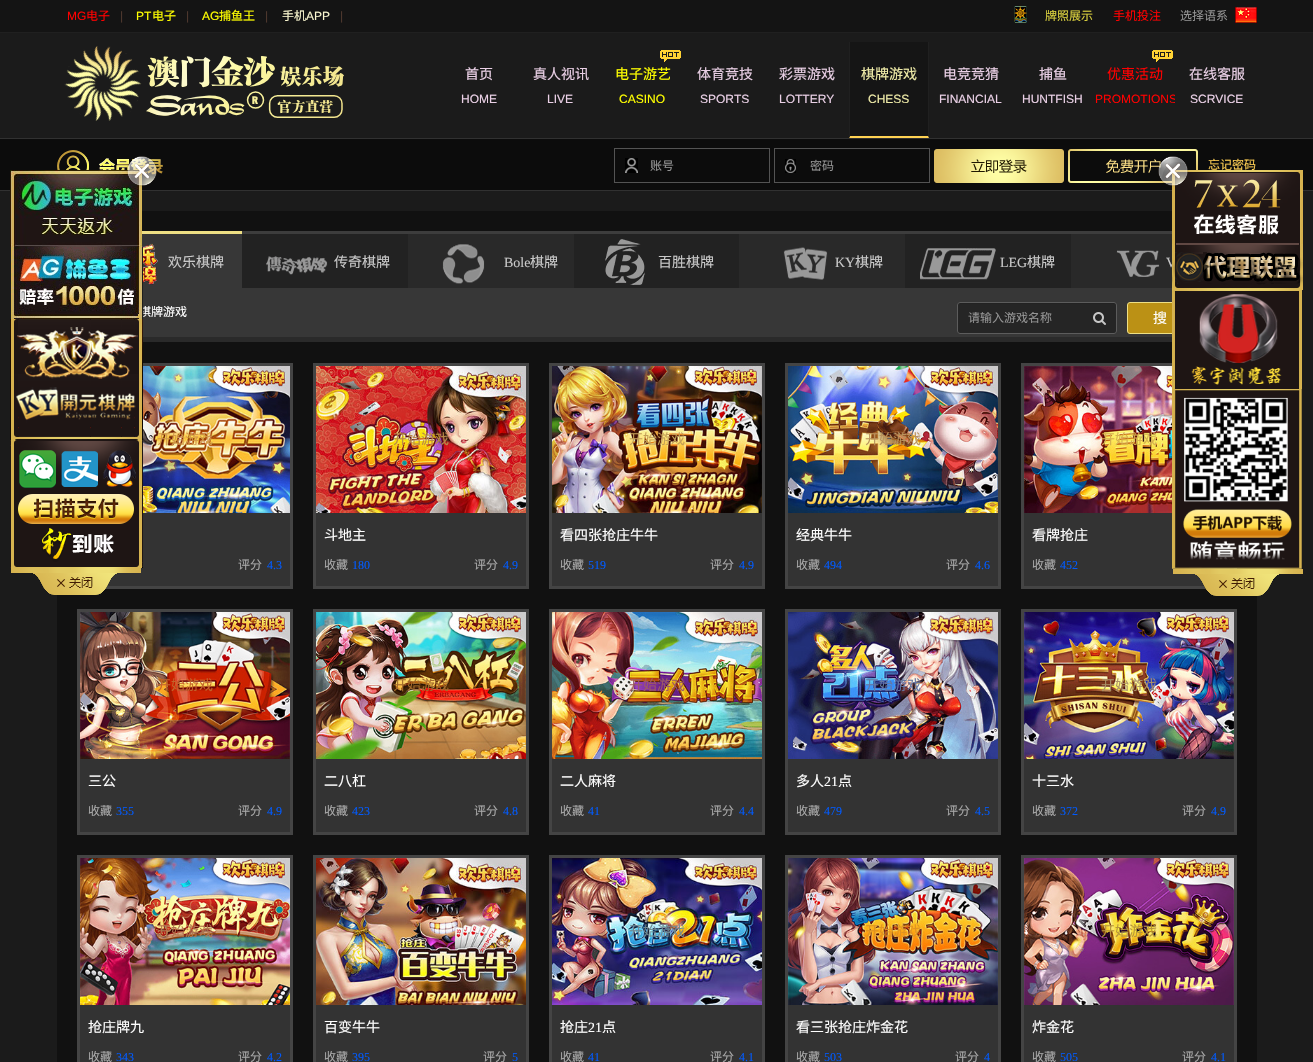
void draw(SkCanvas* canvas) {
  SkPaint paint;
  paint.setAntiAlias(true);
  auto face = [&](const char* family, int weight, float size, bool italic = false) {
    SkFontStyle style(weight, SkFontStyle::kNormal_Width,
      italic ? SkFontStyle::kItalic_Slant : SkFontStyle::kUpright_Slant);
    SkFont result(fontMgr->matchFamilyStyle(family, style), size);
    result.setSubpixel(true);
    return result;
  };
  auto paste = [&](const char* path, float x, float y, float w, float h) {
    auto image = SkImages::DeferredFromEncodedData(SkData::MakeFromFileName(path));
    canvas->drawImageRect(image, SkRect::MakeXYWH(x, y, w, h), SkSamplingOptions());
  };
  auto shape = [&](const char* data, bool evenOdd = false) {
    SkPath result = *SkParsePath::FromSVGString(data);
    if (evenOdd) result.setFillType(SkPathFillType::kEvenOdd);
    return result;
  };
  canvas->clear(0xff141414);
  paste("img/1.png", 1014, 6, 13, 17);
  paste("img/2.png", 1235, 7, 22, 16);
  paint.setColor(0xff1b1b1b);
  canvas->drawRect(SkRect::MakeXYWH(0, 33, 1313, 105), paint);
  paint.setColor(0xff202020);
  canvas->drawRect(SkRect::MakeXYWH(0, 32, 1313, 1), paint);
  paste("img/3.png", 64, 46, 280, 75);
  paste("img/4.png", 660, 50, 21, 12);
  paint.setColor(0xff151515);
  canvas->drawRect(SkRect::MakeXYWH(849, 42, 80, 96), paint);
  paint.setColor(0xff202020);
  canvas->drawPath(shape("M929 42V138L928 136V42Z"), paint);
  paint.setColor(0xffffd253);
  canvas->drawPath(shape("M929 138H849L850 136H928Z"), paint);
  paint.setColor(0xff202020);
  canvas->drawPath(shape("M849 138V42H850V136Z"), paint);
  paste("img/4.png", 1152, 50, 21, 12);
  {
    const struct { float x, y, w, h; SkColor color; } items[] = {
      {0, 139, 1313, 51, 0xff0c0c0c},
      {0, 138, 1313, 1, 0xff313131},
      {0, 190, 1313, 1, 0xff313131},
    };
    for (auto [x, y, w, h, color] : items) {
      paint.setColor(color);
      canvas->drawRect(SkRect::MakeXYWH(x, y, w, h), paint);
    }
  }
  paste("img/5.png", 57, 150, 106, 25);
  paste("img/6.png", 625, 158, 13, 15);
  paint.setStroke(true);
  paint.setStrokeWidth(1);
  paint.setColor(0xff535353);
  canvas->drawRect(SkRect::MakeXYWH(614.5f, 148.5f, 155, 34), paint);
  paste("img/7.png", 785, 159, 11, 14);
  canvas->drawRect(SkRect::MakeXYWH(774.5f, 148.5f, 155, 34), paint);
  paste("img/8.png", 934, 149, 130, 34);
  paste("img/9.png", 1068, 149, 130, 34);
  paint.setStroke(false);
  paint.setColor(0xff1b1b1b);
  canvas->drawRect(SkRect::MakeXYWH(0, 191, 1313, 871), paint);
  paint.setColor(0xff111111);
  canvas->drawRect(SkRect::MakeXYWH(57, 211, 1200, 851), paint);
  paste("img/11.png", 10, 170, 132, 77);
  paste("img/10.png", 126, 156, 32, 31);
  paint.setColor(0xff333333);
  canvas->drawRect(SkRect::MakeXYWH(108, 513, 182, 73), paint);
  paint.setStroke(true);
  paint.setStrokeWidth(3);
  paint.setColor(0xff444444);
  canvas->drawRect(SkRect::MakeXYWH(78.5f, 364.5f, 213, 223), paint);
  paste("img/13.png", 10, 319, 133, 121);
  paste("img/14.png", 10, 440, 133, 128);
  paste("img/15.png", 11, 568, 130, 27);
  paste("img/17.png", 1172, 170, 131, 74);
  paste("img/16.png", 1158, 156, 31, 31);
  paint.setStroke(false);
  paint.setColor(0xff373737);
  canvas->drawRect(SkRect::MakeXYWH(143, 288, 1029, 49), paint);
  paint.setColor(0xffbb9115);
  canvas->drawRoundRect(SkRect::MakeXYWH(1127.5f, 302.5f, 79, 31), 2.5f, 2.5f, paint);
  paint.setStroke(true);
  paint.setStrokeWidth(1);
  paint.setColor(0xffeedf85);
  canvas->drawRoundRect(SkRect::MakeXYWH(1127.5f, 302.5f, 79, 31), 2.5f, 2.5f, paint);
  paint.setStroke(false);
  paint.setColor(0xff333333);
  canvas->drawRect(SkRect::MakeXYWH(1024, 513, 210, 73), paint);
  paint.setStroke(true);
  paint.setStrokeWidth(3);
  paint.setColor(0xff444444);
  canvas->drawRect(SkRect::MakeXYWH(1022.5f, 364.5f, 213, 223), paint);
  paste("img/19.png", 1172, 290, 130, 99);
  paste("img/20.png", 1172, 389, 130, 180);
  paste("img/21.png", 1173, 569, 130, 27);
  paint.setStroke(false);
  {
    const struct { float x, y, w, h; SkColor color; } items[] = {
      {242, 234, 829, 54, 0xff222222},
      {142, 234, 100, 54, 0xff373737},
      {142, 231, 100, 3, 0xffeedf84},
    };
    for (auto [x, y, w, h, color] : items) {
      paint.setColor(color);
      canvas->drawRect(SkRect::MakeXYWH(x, y, w, h), paint);
    }
  }
  paste("img/22.png", 142, 243, 17, 42);
  paint.setColor(0xff3d3d3d);
  canvas->drawRect(SkRect::MakeXYWH(242, 231, 930, 3), paint);
  paste("img/23.png", 266, 256, 62, 19);
  paint.setColor(0xff292929);
  canvas->drawRect(SkRect::MakeXYWH(408, 234, 166, 54), paint);
  paste("img/24.png", 442, 244, 43, 40);
  paste("img/25.png", 605, 239, 40, 46);
  canvas->drawRect(SkRect::MakeXYWH(739, 234, 166, 54), paint);
  paste("img/26.png", 783, 247, 45, 33);
  paste("img/27.png", 920, 248, 76, 32);
  canvas->drawRect(SkRect::MakeXYWH(1071, 234, 101, 54), paint);
  paste("img/28.png", 1116, 250, 44, 27);
  paint.setColor(0xff2a2a2a);
  canvas->drawRect(SkRect::MakeXYWH(143, 337, 1029, 5), paint);
  paint.setColor(0xff252525);
  canvas->drawRoundRect(SkRect::MakeXYWH(957, 302, 160, 32), 3, 3, paint);
  paint.setColor(0xff222222);
  canvas->drawPath(shape("M960 304H1114C1115 304 1116 305 1116 306C1116 305 1116 303 1114 303H960C958 303 958 305 958 306C958 305 959 304 960 304Z"), paint);
  paint.setStroke(true);
  paint.setStrokeWidth(1);
  paint.setColor(0xff5c5c5c);
  canvas->drawRoundRect(SkRect::MakeXYWH(957.5f, 302.5f, 159, 31), 2.5f, 2.5f, paint);
  paste("img/29.png", 1093, 312, 13, 13);
  paste("img/30.png", 143, 366, 147, 147);
  paint.setStroke(false);
  paint.setColor(0xff333333);
  canvas->drawRect(SkRect::MakeXYWH(316, 513, 210, 73), paint);
  paint.setStroke(true);
  paint.setStrokeWidth(3);
  paint.setColor(0xff444444);
  canvas->drawRect(SkRect::MakeXYWH(314.5f, 364.5f, 213, 223), paint);
  paste("img/31.png", 316, 366, 210, 147);
  paint.setStroke(false);
  paint.setColor(0xff333333);
  canvas->drawRect(SkRect::MakeXYWH(552, 513, 210, 73), paint);
  paint.setStroke(true);
  paint.setColor(0xff444444);
  canvas->drawRect(SkRect::MakeXYWH(550.5f, 364.5f, 213, 223), paint);
  paste("img/32.png", 552, 366, 210, 147);
  paint.setStroke(false);
  paint.setColor(0xff333333);
  canvas->drawRect(SkRect::MakeXYWH(788, 513, 210, 73), paint);
  paint.setStroke(true);
  paint.setColor(0xff444444);
  canvas->drawRect(SkRect::MakeXYWH(786.5f, 364.5f, 213, 223), paint);
  paste("img/33.png", 788, 366, 210, 147);
  paste("img/34.png", 1024, 366, 148, 147);
  paint.setStroke(false);
  paint.setColor(0xff333333);
  canvas->drawRect(SkRect::MakeXYWH(80, 759, 210, 73), paint);
  paint.setStroke(true);
  paint.setColor(0xff444444);
  canvas->drawRect(SkRect::MakeXYWH(78.5f, 610.5f, 213, 223), paint);
  paste("img/35.png", 80, 612, 210, 147);
  paint.setStroke(false);
  paint.setColor(0xff333333);
  canvas->drawRect(SkRect::MakeXYWH(316, 759, 210, 73), paint);
  paint.setStroke(true);
  paint.setColor(0xff444444);
  canvas->drawRect(SkRect::MakeXYWH(314.5f, 610.5f, 213, 223), paint);
  paste("img/36.png", 316, 612, 210, 147);
  paint.setStroke(false);
  paint.setColor(0xff333333);
  canvas->drawRect(SkRect::MakeXYWH(552, 759, 210, 73), paint);
  paint.setStroke(true);
  paint.setColor(0xff444444);
  canvas->drawRect(SkRect::MakeXYWH(550.5f, 610.5f, 213, 223), paint);
  paste("img/37.png", 552, 612, 210, 147);
  paint.setStroke(false);
  paint.setColor(0xff333333);
  canvas->drawRect(SkRect::MakeXYWH(788, 759, 210, 73), paint);
  paint.setStroke(true);
  paint.setColor(0xff444444);
  canvas->drawRect(SkRect::MakeXYWH(786.5f, 610.5f, 213, 223), paint);
  paste("img/38.png", 788, 612, 210, 147);
  paint.setStroke(false);
  paint.setColor(0xff333333);
  canvas->drawRect(SkRect::MakeXYWH(1024, 759, 210, 73), paint);
  paint.setStroke(true);
  paint.setColor(0xff444444);
  canvas->drawRect(SkRect::MakeXYWH(1022.5f, 610.5f, 213, 223), paint);
  paste("img/39.png", 1024, 612, 210, 147);
  paint.setStroke(false);
  paint.setColor(0xff333333);
  canvas->drawRect(SkRect::MakeXYWH(80, 1005, 210, 57), paint);
  paint.setStroke(true);
  paint.setColor(0xff444444);
  canvas->drawRect(SkRect::MakeXYWH(78.5f, 856.5f, 213, 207), paint);
  paste("img/40.png", 80, 858, 210, 147);
  paint.setStroke(false);
  paint.setColor(0xff333333);
  canvas->drawRect(SkRect::MakeXYWH(316, 1005, 210, 57), paint);
  paint.setStroke(true);
  paint.setColor(0xff444444);
  canvas->drawRect(SkRect::MakeXYWH(314.5f, 856.5f, 213, 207), paint);
  paste("img/41.png", 316, 858, 210, 147);
  paint.setStroke(false);
  paint.setColor(0xff333333);
  canvas->drawRect(SkRect::MakeXYWH(552, 1005, 210, 57), paint);
  paint.setStroke(true);
  paint.setColor(0xff444444);
  canvas->drawRect(SkRect::MakeXYWH(550.5f, 856.5f, 213, 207), paint);
  paste("img/42.png", 552, 858, 210, 147);
  paint.setStroke(false);
  paint.setColor(0xff333333);
  canvas->drawRect(SkRect::MakeXYWH(788, 1005, 210, 57), paint);
  paint.setStroke(true);
  paint.setColor(0xff444444);
  canvas->drawRect(SkRect::MakeXYWH(786.5f, 856.5f, 213, 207), paint);
  paste("img/43.png", 788, 858, 210, 147);
  paint.setStroke(false);
  paint.setColor(0xff333333);
  canvas->drawRect(SkRect::MakeXYWH(1024, 1005, 210, 57), paint);
  paint.setStroke(true);
  paint.setColor(0xff444444);
  canvas->drawRect(SkRect::MakeXYWH(1022.5f, 856.5f, 213, 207), paint);
  paste("img/44.png", 1024, 858, 210, 147);
  auto f0 = face("Liberation Sans", 400, 12);
  paint.setStroke(false);
  paint.setColor(0xffff0000);
  canvas->drawString("MG", 67, 20, f0, paint);
  auto f1 = face("Noto Sans CJK SC", 400, 12);
  canvas->drawString("电子", 86, 20, f1, paint);
  paint.setColor(0xff4e382e);
  canvas->drawString("|", 120, 20, f0, paint);
  paint.setColor(0xffffff00);
  canvas->drawString("PT", 136, 20, f0, paint);
  canvas->drawString("电子", 152, 20, f1, paint);
  paint.setColor(0xff4e382e);
  canvas->drawString("|", 186, 20, f0, paint);
  paint.setColor(0xffffff00);
  canvas->drawString("AG", 202, 20, f0, paint);
  canvas->drawString("捕鱼王", 219, 20, f1, paint);
  paint.setColor(0xff4e382e);
  canvas->drawString("|", 265, 20, f0, paint);
  paint.setColor(0xfffbf8d0);
  canvas->drawString("手机", 282, 20, f1, paint);
  canvas->drawString("APP", 306, 20, f0, paint);
  paint.setColor(0xff4e382e);
  canvas->drawString("|", 340, 20, f0, paint);
  paint.setColor(0xffdad03e);
  canvas->drawString("牌照展示", 1045, 20, f1, paint);
  paint.setColor(0xffff0000);
  canvas->drawString("手机投注", 1113, 20, f1, paint);
  paint.setColor(0xff949494);
  canvas->drawString("选择语系", 1180, 20, f1, paint);
  auto f2 = face("Noto Sans CJK SC", 400, 14);
  paint.setColor(0xffead0e6);
  canvas->drawString("首页", 465, 79, f2, paint);
  canvas->drawString("HOME", 461, 103, f0, paint);
  canvas->drawString("真人视讯", 533, 79, f2, paint);
  canvas->drawString("LIVE", 547, 103, f0, paint);
  paint.setColor(0xffffff00);
  canvas->drawString("电子游艺", 615, 79, f2, paint);
  canvas->drawString("CASINO", 619, 103, f0, paint);
  paint.setColor(0xffead0e6);
  canvas->drawString("体育竞技", 697, 79, f2, paint);
  canvas->drawString("SPORTS", 700, 103, f0, paint);
  canvas->drawString("彩票游戏", 779, 79, f2, paint);
  canvas->drawString("LOTTERY", 779, 103, f0, paint);
  paint.setColor(0xfff1eda9);
  canvas->drawString("棋牌游戏", 861, 79, f2, paint);
  canvas->drawString("CHESS", 868, 103, f0, paint);
  paint.setColor(0xffead0e6);
  canvas->drawString("电竞竞猜", 943, 79, f2, paint);
  canvas->drawString("FINANCIAL", 939, 103, f0, paint);
  canvas->drawString("捕鱼", 1039, 79, f2, paint);
  canvas->drawString("HUNTFISH", 1022, 103, f0, paint);
  paint.setColor(0xffff0000);
  canvas->drawString("优惠活动", 1107, 79, f2, paint);
  canvas->save();
  canvas->clipRect(SkRect::MakeXYWH(1095, 42, 80, 96));
  canvas->drawString("PROMOTIONS", 1095, 103, f0, paint);
  canvas->restore();
  paint.setColor(0xffead0e6);
  canvas->drawString("在线客服", 1189, 79, f2, paint);
  canvas->drawString("SCRVICE", 1190, 103, f0, paint);
  paint.setColor(0xff949494);
  canvas->drawString("账号", 650, 170, f1, paint);
  canvas->drawString("密码", 810, 170, f1, paint);
  paint.setColor(0xffffcf53);
  canvas->drawString("忘记密码", 1208, 169, f1, paint);
  paint.setColor(0xffc8c8c8);
  canvas->drawString("欢乐棋牌", 168, 267, f2, paint);
  canvas->drawString("传奇棋牌", 334, 267, f2, paint);
  auto f3 = face("Liberation Serif", 400, 14);
  canvas->drawString("Bole", 504, 267, f3, paint);
  canvas->drawString("棋牌", 530, 267, f2, paint);
  canvas->drawString("百胜棋牌", 658, 267, f2, paint);
  canvas->drawString("KY", 835, 267, f3, paint);
  canvas->drawString("棋牌", 855, 267, f2, paint);
  canvas->drawString("LEG", 1000, 267, f3, paint);
  canvas->drawString("棋牌", 1027, 267, f2, paint);
  canvas->drawString("V", 1166, 267, f3, paint);
  paste("img/18.png", 1172, 244, 131, 46);
  paint.setColor(0xffffffff);
  canvas->drawString("棋牌游戏", 139, 316, f1, paint);
  paste("img/12.png", 11, 247, 132, 72);
  paint.setColor(0xff949494);
  canvas->drawString("请输入游戏名称", 968, 322, f1, paint);
  paint.setColor(0xffffffff);
  canvas->drawString("搜", 1153, 323, f2, paint);
  paint.setColor(0xffd29a4a);
  canvas->drawString("开始游戏", 157, 444, f2, paint);
  paint.setColor(0xffaaaaaa);
  canvas->drawString("评分", 238, 569, f1, paint);
  auto f4 = face("Liberation Serif", 400, 12);
  paint.setColor(0xff005aff);
  canvas->drawString("4.3", 267, 569, f4, paint);
  paint.setColor(0xffb78849);
  canvas->drawString("开始游戏", 393, 444, f2, paint);
  paint.setColor(0xffffffff);
  canvas->drawString("斗地主", 324, 540, f2, paint);
  paint.setColor(0xffaaaaaa);
  canvas->drawString("收藏", 324, 569, f1, paint);
  paint.setColor(0xff005aff);
  canvas->drawString("180", 352, 569, f4, paint);
  paint.setColor(0xffaaaaaa);
  canvas->drawString("评分", 474, 569, f1, paint);
  paint.setColor(0xff005aff);
  canvas->drawString("4.9", 503, 569, f4, paint);
  paint.setColor(0xffc39f57);
  canvas->drawString("开始游戏", 629, 444, f2, paint);
  paint.setColor(0xffffffff);
  canvas->drawString("看四张抢庄牛牛", 560, 540, f2, paint);
  paint.setColor(0xffaaaaaa);
  canvas->drawString("收藏", 560, 569, f1, paint);
  paint.setColor(0xff005aff);
  canvas->drawString("519", 588, 569, f4, paint);
  paint.setColor(0xffaaaaaa);
  canvas->drawString("评分", 710, 569, f1, paint);
  paint.setColor(0xff005aff);
  canvas->drawString("4.9", 739, 569, f4, paint);
  paint.setColor(0xffba935d);
  canvas->drawString("开始游戏", 865, 444, f2, paint);
  paint.setColor(0xffffffff);
  canvas->drawString("经典牛牛", 796, 540, f2, paint);
  paint.setColor(0xffaaaaaa);
  canvas->drawString("收藏", 796, 569, f1, paint);
  paint.setColor(0xff005aff);
  canvas->drawString("494", 824, 569, f4, paint);
  paint.setColor(0xffaaaaaa);
  canvas->drawString("评分", 946, 569, f1, paint);
  paint.setColor(0xff005aff);
  canvas->drawString("4.6", 975, 569, f4, paint);
  paint.setColor(0xffd6b14e);
  canvas->drawString("开始游戏", 1101, 444, f2, paint);
  paint.setColor(0xffffffff);
  canvas->drawString("看牌抢庄", 1032, 540, f2, paint);
  paint.setColor(0xffaaaaaa);
  canvas->drawString("收藏", 1032, 569, f1, paint);
  paint.setColor(0xff005aff);
  canvas->drawString("452", 1060, 569, f4, paint);
  paint.setColor(0xffc3632b);
  canvas->drawString("开始游戏", 157, 690, f2, paint);
  paint.setColor(0xffffffff);
  canvas->drawString("三公", 88, 786, f2, paint);
  paint.setColor(0xffaaaaaa);
  canvas->drawString("收藏", 88, 815, f1, paint);
  paint.setColor(0xff005aff);
  canvas->drawString("355", 116, 815, f4, paint);
  paint.setColor(0xffaaaaaa);
  canvas->drawString("评分", 238, 815, f1, paint);
  paint.setColor(0xff005aff);
  canvas->drawString("4.9", 267, 815, f4, paint);
  paint.setColor(0xffa36b2c);
  canvas->drawString("开始游戏", 393, 690, f2, paint);
  paint.setColor(0xffffffff);
  canvas->drawString("二八杠", 324, 786, f2, paint);
  paint.setColor(0xffaaaaaa);
  canvas->drawString("收藏", 324, 815, f1, paint);
  paint.setColor(0xff005aff);
  canvas->drawString("423", 352, 815, f4, paint);
  paint.setColor(0xffaaaaaa);
  canvas->drawString("评分", 474, 815, f1, paint);
  paint.setColor(0xff005aff);
  canvas->drawString("4.8", 503, 815, f4, paint);
  paint.setColor(0xff9e5b63);
  canvas->drawString("开始游戏", 629, 690, f2, paint);
  paint.setColor(0xffffffff);
  canvas->drawString("二人麻将", 560, 786, f2, paint);
  paint.setColor(0xffaaaaaa);
  canvas->drawString("收藏", 560, 815, f1, paint);
  paint.setColor(0xff005aff);
  canvas->drawString("41", 588, 815, f4, paint);
  paint.setColor(0xffaaaaaa);
  canvas->drawString("评分", 710, 815, f1, paint);
  paint.setColor(0xff005aff);
  canvas->drawString("4.4", 739, 815, f4, paint);
  paint.setColor(0xff6577a3);
  canvas->drawString("开始游戏", 865, 690, f2, paint);
  paint.setColor(0xffffffff);
  canvas->drawString("多人", 796, 786, f2, paint);
  canvas->drawString("21", 824, 786, f3, paint);
  canvas->drawString("点", 838, 786, f2, paint);
  paint.setColor(0xffaaaaaa);
  canvas->drawString("收藏", 796, 815, f1, paint);
  paint.setColor(0xff005aff);
  canvas->drawString("479", 824, 815, f4, paint);
  paint.setColor(0xffaaaaaa);
  canvas->drawString("评分", 946, 815, f1, paint);
  paint.setColor(0xff005aff);
  canvas->drawString("4.5", 975, 815, f4, paint);
  paint.setColor(0xffaa9068);
  canvas->drawString("开始游戏", 1101, 690, f2, paint);
  paint.setColor(0xffffffff);
  canvas->drawString("十三水", 1032, 786, f2, paint);
  paint.setColor(0xffaaaaaa);
  canvas->drawString("收藏", 1032, 815, f1, paint);
  paint.setColor(0xff005aff);
  canvas->drawString("372", 1060, 815, f4, paint);
  paint.setColor(0xffaaaaaa);
  canvas->drawString("评分", 1182, 815, f1, paint);
  paint.setColor(0xff005aff);
  canvas->drawString("4.9", 1211, 815, f4, paint);
  paint.setColor(0xffb1754e);
  canvas->drawString("开始游戏", 157, 936, f2, paint);
  paint.setColor(0xffffffff);
  canvas->drawString("抢庄牌九", 88, 1032, f2, paint);
  paint.setColor(0xffaaaaaa);
  canvas->drawString("收藏", 88, 1061, f1, paint);
  paint.setColor(0xff005aff);
  canvas->drawString("343", 116, 1061, f4, paint);
  paint.setColor(0xffaaaaaa);
  canvas->drawString("评分", 238, 1061, f1, paint);
  paint.setColor(0xff005aff);
  canvas->drawString("4.2", 267, 1061, f4, paint);
  paint.setColor(0xffffffff);
  canvas->drawString("百变牛牛", 324, 1032, f2, paint);
  paint.setColor(0xffaaaaaa);
  canvas->drawString("收藏", 324, 1061, f1, paint);
  paint.setColor(0xff005aff);
  canvas->drawString("395", 352, 1061, f4, paint);
  paint.setColor(0xffaaaaaa);
  canvas->drawString("评分", 483, 1061, f1, paint);
  paint.setColor(0xff005aff);
  canvas->drawString("5", 512, 1061, f4, paint);
  paint.setColor(0xff708a91);
  canvas->drawString("开始游戏", 629, 936, f2, paint);
  paint.setColor(0xffffffff);
  canvas->drawString("抢庄", 560, 1032, f2, paint);
  canvas->drawString("21", 588, 1032, f3, paint);
  canvas->drawString("点", 602, 1032, f2, paint);
  paint.setColor(0xffaaaaaa);
  canvas->drawString("收藏", 560, 1061, f1, paint);
  paint.setColor(0xff005aff);
  canvas->drawString("41", 588, 1061, f4, paint);
  paint.setColor(0xffaaaaaa);
  canvas->drawString("评分", 710, 1061, f1, paint);
  paint.setColor(0xff005aff);
  canvas->drawString("4.1", 739, 1061, f4, paint);
  paint.setColor(0xffde9323);
  canvas->drawString("开始游戏", 865, 936, f2, paint);
  paint.setColor(0xffffffff);
  canvas->drawString("看三张抢庄炸金花", 796, 1032, f2, paint);
  paint.setColor(0xffaaaaaa);
  canvas->drawString("收藏", 796, 1061, f1, paint);
  paint.setColor(0xff005aff);
  canvas->drawString("503", 824, 1061, f4, paint);
  paint.setColor(0xffaaaaaa);
  canvas->drawString("评分", 955, 1061, f1, paint);
  paint.setColor(0xff005aff);
  canvas->drawString("4", 984, 1061, f4, paint);
  paint.setColor(0xffb6953a);
  canvas->drawString("开始游戏", 1101, 936, f2, paint);
  paint.setColor(0xffffffff);
  canvas->drawString("炸金花", 1032, 1032, f2, paint);
  paint.setColor(0xffaaaaaa);
  canvas->drawString("收藏", 1032, 1061, f1, paint);
  paint.setColor(0xff005aff);
  canvas->drawString("505", 1060, 1061, f4, paint);
  paint.setColor(0xffaaaaaa);
  canvas->drawString("评分", 1182, 1061, f1, paint);
  paint.setColor(0xff005aff);
  canvas->drawString("4.1", 1211, 1061, f4, paint);
}
